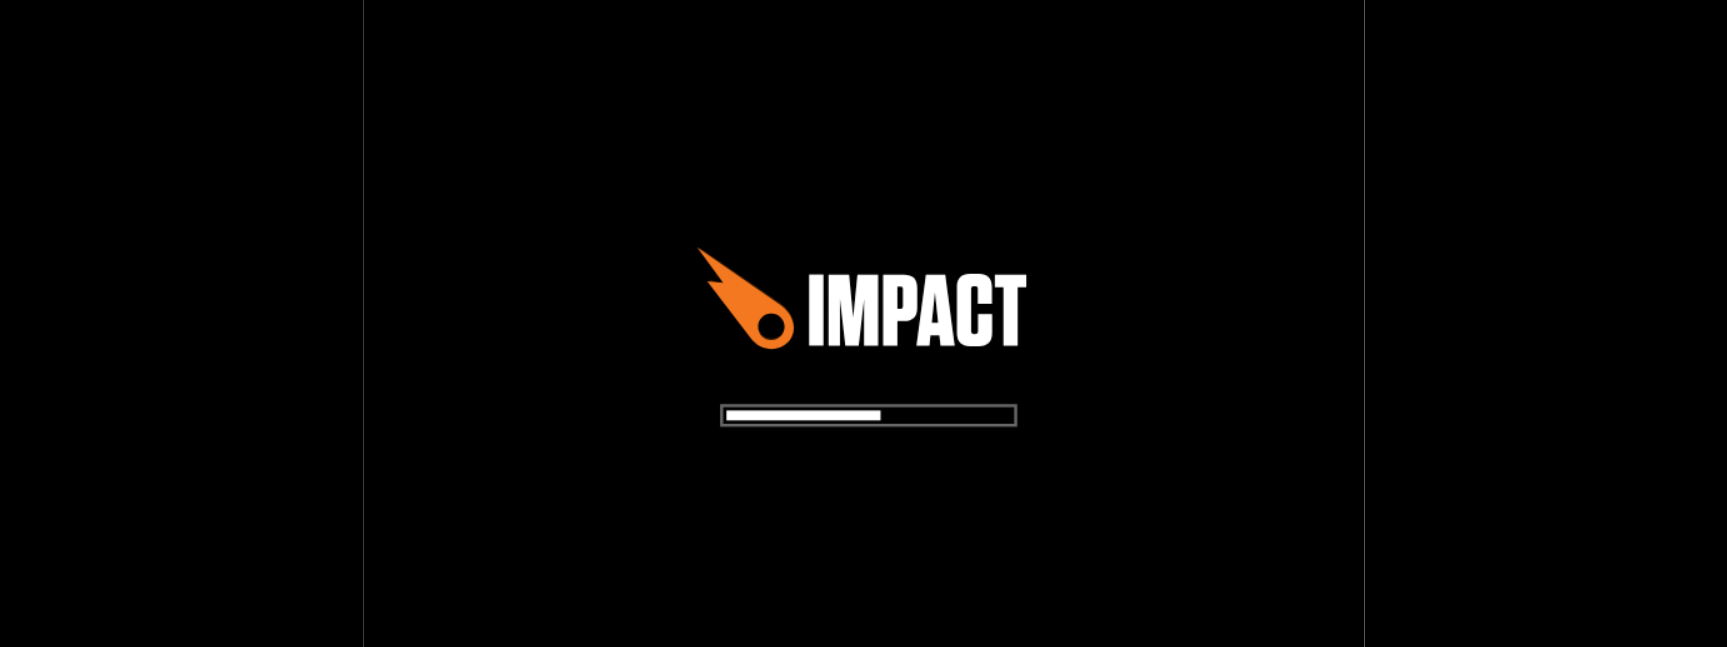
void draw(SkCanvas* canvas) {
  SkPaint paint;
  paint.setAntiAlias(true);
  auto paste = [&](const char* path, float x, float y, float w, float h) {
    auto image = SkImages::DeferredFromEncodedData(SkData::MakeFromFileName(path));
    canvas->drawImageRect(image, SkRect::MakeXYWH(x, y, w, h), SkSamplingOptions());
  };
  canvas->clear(0xff000000);
  paint.setStroke(true);
  paint.setStrokeWidth(1);
  paint.setColor(0xff555555);
  canvas->drawRect(SkRect::MakeXYWH(363.5f, -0.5f, 1001, 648), paint);
  paste("img/1.png", 363, 0, 665, 647);
}
